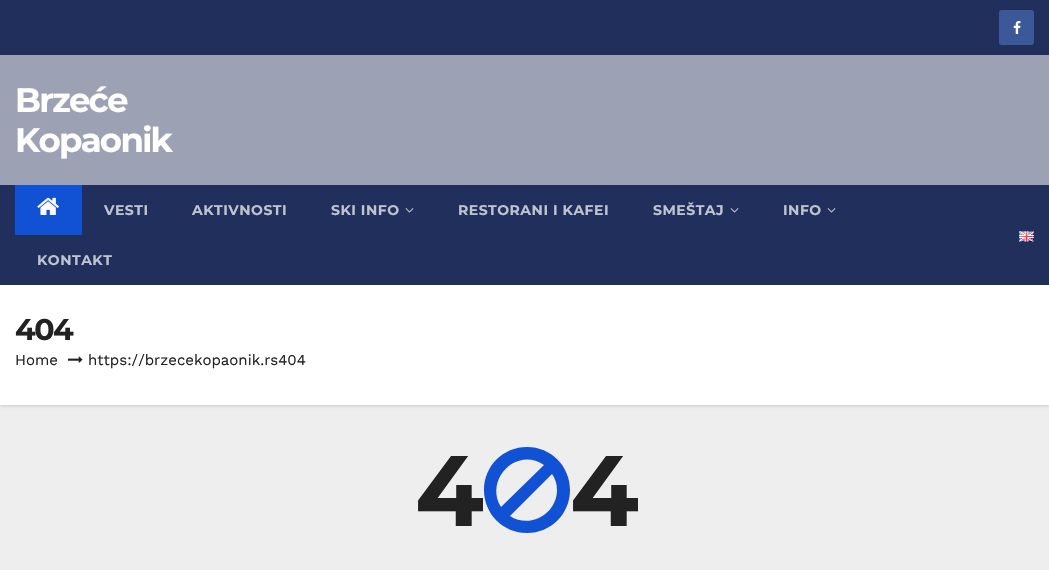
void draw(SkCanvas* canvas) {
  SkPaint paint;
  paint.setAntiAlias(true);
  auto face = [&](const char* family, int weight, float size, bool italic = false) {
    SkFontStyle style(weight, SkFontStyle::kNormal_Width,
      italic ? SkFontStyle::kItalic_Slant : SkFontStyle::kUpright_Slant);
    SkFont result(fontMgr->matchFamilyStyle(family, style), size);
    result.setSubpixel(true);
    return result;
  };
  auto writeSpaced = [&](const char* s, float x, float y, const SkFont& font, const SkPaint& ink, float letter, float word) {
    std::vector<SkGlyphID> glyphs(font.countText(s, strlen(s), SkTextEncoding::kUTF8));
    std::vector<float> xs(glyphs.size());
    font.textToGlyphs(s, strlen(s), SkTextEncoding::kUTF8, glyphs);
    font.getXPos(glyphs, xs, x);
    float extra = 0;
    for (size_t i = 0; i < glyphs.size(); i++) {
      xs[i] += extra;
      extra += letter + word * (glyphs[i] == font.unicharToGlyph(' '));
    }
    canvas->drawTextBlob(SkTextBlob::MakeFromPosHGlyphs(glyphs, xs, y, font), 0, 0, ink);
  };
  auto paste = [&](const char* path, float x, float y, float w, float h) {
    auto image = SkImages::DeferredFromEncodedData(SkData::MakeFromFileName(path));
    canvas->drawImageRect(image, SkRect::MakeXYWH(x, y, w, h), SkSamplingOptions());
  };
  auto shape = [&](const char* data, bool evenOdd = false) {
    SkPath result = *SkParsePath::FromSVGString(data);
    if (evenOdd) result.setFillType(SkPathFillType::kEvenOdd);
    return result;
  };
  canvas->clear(0xffeeeeee);
  paint.setColor(0xff202f5b);
  canvas->drawRect(SkRect::MakeXYWH(0, 0, 1049, 55), paint);
  paint.setColor(0xff3b5998);
  canvas->drawRoundRect(SkRect::MakeXYWH(999, 10, 35, 35), 3, 3, paint);
  paste("img/1.png", 1013, 21, 8, 13);
  paint.setColor(0xff9ca2b3);
  canvas->drawRect(SkRect::MakeXYWH(0, 55, 1049, 130), paint);
  paint.setColor(0x26000000);
  paint.setMaskFilter(SkMaskFilter::MakeBlur(kNormal_SkBlurStyle, 1.5f));
  canvas->drawRect(SkRect::MakeXYWH(0, 286, 1049, 120), paint);
  paint.setMaskFilter(nullptr);
  paint.setColor(0xff202f5b);
  canvas->drawRect(SkRect::MakeXYWH(0, 185, 1049, 100), paint);
  paint.setColor(0xff1151d3);
  canvas->drawRect(SkRect::MakeXYWH(15, 185, 67, 50), paint);
  paste("img/2.png", 37, 197, 22, 18);
  paste("img/3.png", 405, 208, 9, 5);
  paste("img/3.png", 730, 208, 9, 5);
  paste("img/3.png", 827, 208, 9, 5);
  paste("img/4.png", 1019, 231, 15, 11);
  paint.setColor(0xffffffff);
  canvas->drawRect(SkRect::MakeXYWH(0, 285, 1049, 120), paint);
  paste("img/5.png", 68, 356, 15, 7);
  paint.setColor(0xff1151d3);
  canvas->drawPath(shape("M557 490C557 514 530 529 510 516L552 474C555 478 557 484 557 490ZM501 507C484 479 517 446 544 465ZM570 490C570 466 551 447 527 447C503 447 484 466 484 490C484 514 503 533 527 533C551 533 570 514 570 490Z"), paint);
  auto f0 = face("Montserrat", 700, 34);
  paint.setColor(0xffffffff);
  writeSpaced("Brzeće", 15, 112, f0, paint, -1.75f, 0);
  writeSpaced("Kopaonik", 15, 152, f0, paint, -1.75f, 0);
  auto f1 = face("Montserrat", 700, 14);
  paint.setColor(0xffbec3cf);
  {
    const struct { const char* s; float x, y; } items[] = {
      {"VESTI", 104, 215},
      {"AKTIVNOSTI", 192, 215},
      {"SKI INFO", 331, 215},
      {"RESTORANI I KAFEI", 458, 215},
      {"SMEŠTAJ", 653, 215},
      {"INFO", 783, 215},
      {"KONTAKT", 37, 265},
    };
    for (auto [s, x, y] : items) {
      writeSpaced(s, x, y, f1, paint, 0.5f, 0);
    }
  }
  auto f2 = face("Montserrat", 700, 30);
  paint.setColor(0xff222222);
  writeSpaced("404", 15, 340, f2, paint, -1.5f, 0);
  auto f3 = face("Work Sans", 400, 15);
  canvas->drawString("Home", 15, 365, f3, paint);
  canvas->drawString("https://brzecekopaonik.rs404", 88, 365, f3, paint);
  auto f4 = face("Montserrat", 700, 100);
  writeSpaced("4", 415, 526, f4, paint, -5, 0);
  writeSpaced("4", 570, 526, f4, paint, -5, 0);
}
